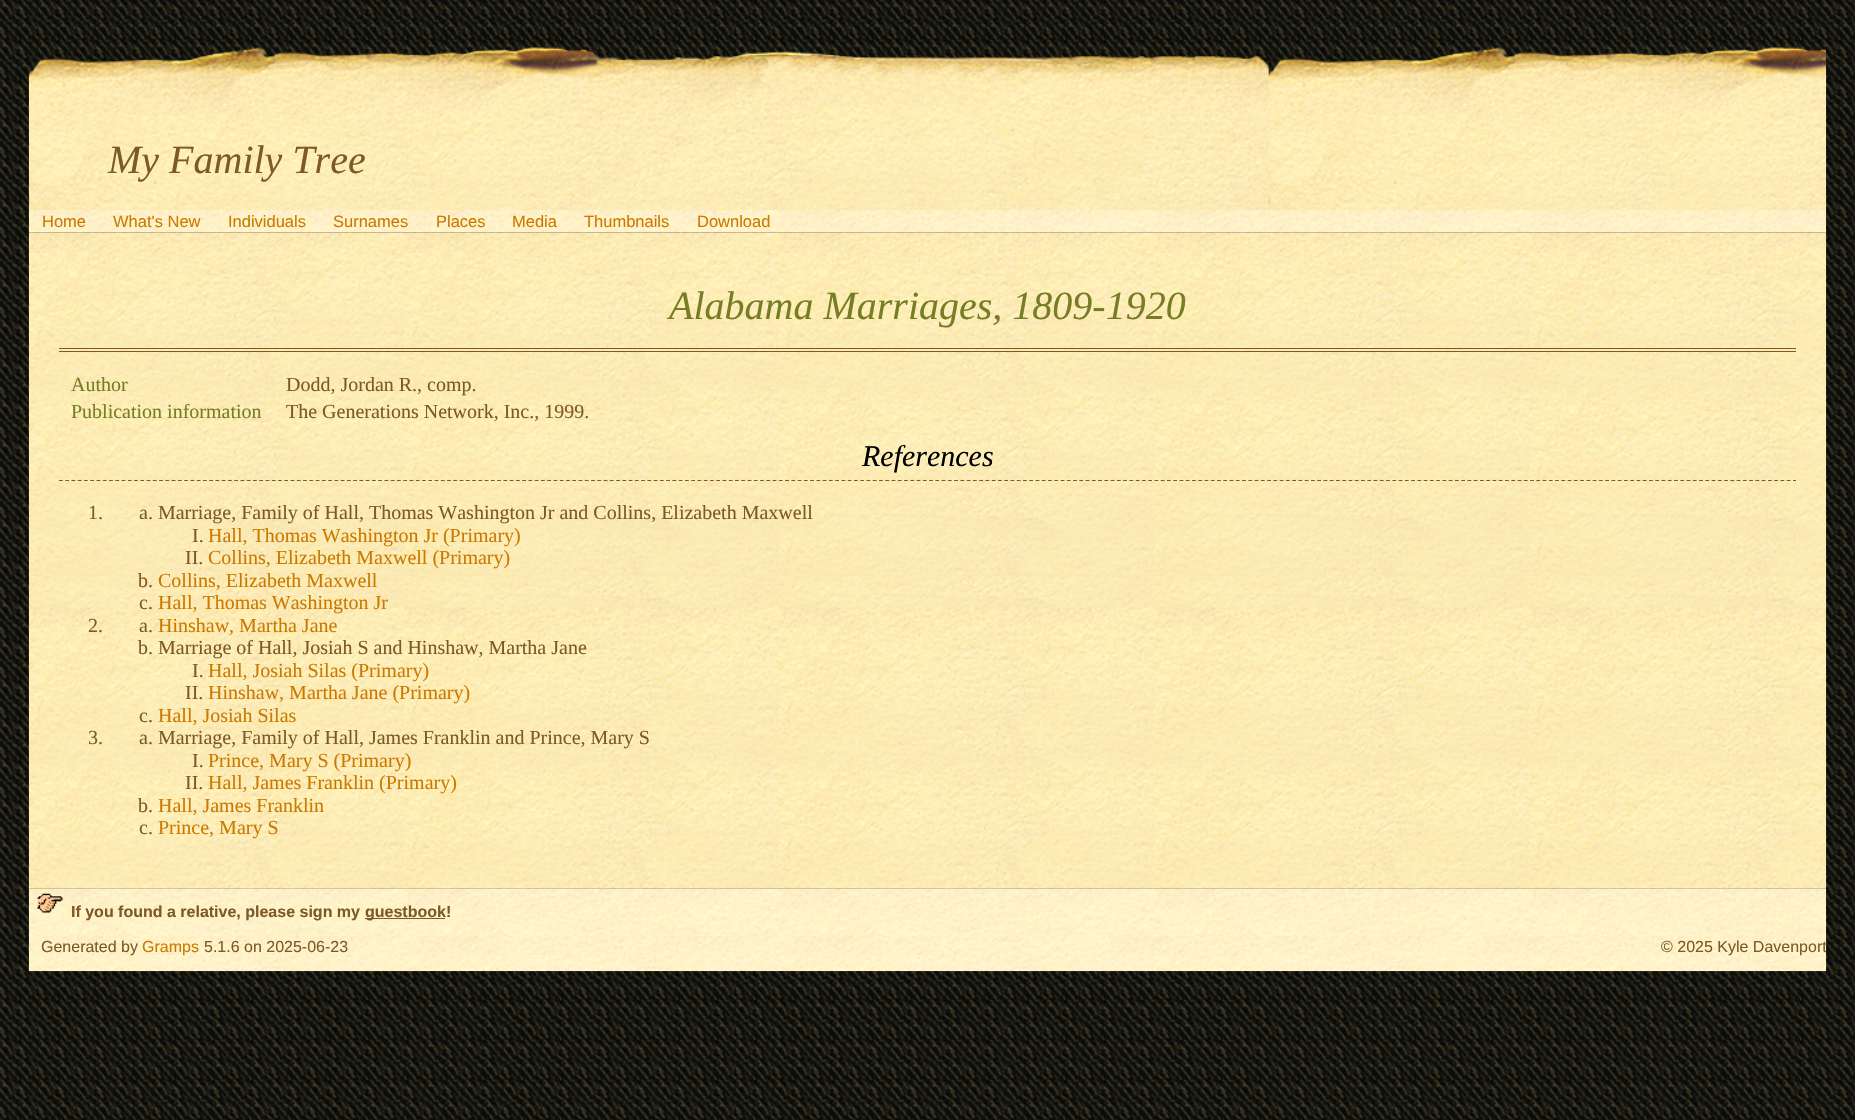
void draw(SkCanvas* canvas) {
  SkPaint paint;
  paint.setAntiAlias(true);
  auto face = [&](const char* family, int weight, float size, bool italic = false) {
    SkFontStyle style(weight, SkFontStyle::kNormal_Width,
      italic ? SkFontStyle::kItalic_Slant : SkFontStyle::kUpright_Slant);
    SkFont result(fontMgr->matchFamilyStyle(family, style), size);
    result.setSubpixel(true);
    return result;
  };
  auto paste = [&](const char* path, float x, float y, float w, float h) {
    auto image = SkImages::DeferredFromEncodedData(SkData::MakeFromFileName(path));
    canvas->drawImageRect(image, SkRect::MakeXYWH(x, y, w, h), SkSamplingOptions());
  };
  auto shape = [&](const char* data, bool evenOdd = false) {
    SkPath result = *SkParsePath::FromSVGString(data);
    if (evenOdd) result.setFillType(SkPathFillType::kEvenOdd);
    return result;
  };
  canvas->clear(0xffffffff);
  paste("img/1.png", 0, 0, 1855, 1120);
  paste("img/2.png", 28, 47, 1799, 163);
  paste("img/3.png", 28, 210, 1799, 23);
  paste("img/4.png", 28, 232, 1799, 657);
  paint.setColor(0xff7d5925);
  canvas->drawRect(SkRect::MakeXYWH(59, 348, 1737, 1), paint);
  canvas->drawRect(SkRect::MakeXYWH(59, 351, 1737, 1), paint);
  paint.setStroke(true);
  paint.setStrokeWidth(1.2f);
  paint.setPathEffect(SkDashPathEffect::Make({{3.75f, 2.51f}}, 0));
  canvas->drawPath(shape("M59 480.5H1796"), paint);
  paint.setPathEffect(nullptr);
  paste("img/5.png", 28, 888, 1799, 84);
  paste("img/6.png", 29, 889, 1797, 31);
  paste("img/7.png", 37, 893, 26, 20);
  paint.setStroke(false);
  canvas->drawRect(SkRect::MakeXYWH(365, 918, 80, 1), paint);
  paint.setColor(0xfffff2c6);
  canvas->drawRect(SkRect::MakeXYWH(41, 936, 899, 19), paint);
  paste("img/8.png", 41, 936, 899, 19);
  paste("img/9.png", 1107, 936, 719, 19);
  auto f0 = face("Liberation Serif", 400, 40, true);
  paint.setColor(0xff7d5925);
  canvas->drawString("My Family Tree", 108, 173, f0, paint);
  auto f1 = face("Liberation Sans", 400, 16.5f);
  paint.setColor(0xffcc7900);
  {
    const struct { const char* s; float x, y; } items[] = {
      {"Home", 42, 227},
      {"What's New", 113, 227},
      {"Individuals", 228, 227},
      {"Surnames", 333, 227},
      {"Places", 436, 227},
      {"Media", 512, 227},
      {"Thumbnails", 584, 227},
      {"Download", 697, 227},
    };
    for (auto [s, x, y] : items) {
      canvas->drawString(s, x, y, f1, paint);
    }
  }
  paint.setColor(0xff767d25);
  canvas->drawString("Alabama Marriages, 1809-1920", 669, 319, f0, paint);
  auto f2 = face("Liberation Serif", 400, 20);
  canvas->drawString("Author", 71, 391, f2, paint);
  paint.setColor(0xff7d5925);
  canvas->drawString("Dodd, Jordan R., comp.", 286, 391, f2, paint);
  paint.setColor(0xff767d25);
  canvas->drawString("Publication information", 71, 418, f2, paint);
  paint.setColor(0xff7d5925);
  canvas->drawString("The Generations Network, Inc., 1999.", 286, 418, f2, paint);
  auto f3 = face("Liberation Serif", 400, 30, true);
  paint.setColor(0xff000000);
  canvas->drawString("References", 862, 466, f3, paint);
  paint.setColor(0xff7d5925);
  {
    const struct { const char* s; float x, y; } items[] = {
      {"1.", 88, 519},
      {"a. Marriage, Family of Hall, Thomas Washington Jr and Collins, Elizabeth Maxwell", 139, 519},
      {"I.", 192, 542},
    };
    for (auto [s, x, y] : items) {
      canvas->drawString(s, x, y, f2, paint);
    }
  }
  paint.setColor(0xffcc7900);
  canvas->drawString("Hall, Thomas Washington Jr (Primary)", 208, 542, f2, paint);
  paint.setColor(0xff7d5925);
  canvas->drawString("II.", 185, 564, f2, paint);
  paint.setColor(0xffcc7900);
  canvas->drawString("Collins, Elizabeth Maxwell (Primary)", 208, 564, f2, paint);
  paint.setColor(0xff7d5925);
  canvas->drawString("b.", 138, 587, f2, paint);
  paint.setColor(0xffcc7900);
  canvas->drawString("Collins, Elizabeth Maxwell", 158, 587, f2, paint);
  paint.setColor(0xff7d5925);
  canvas->drawString("c.", 139, 609, f2, paint);
  paint.setColor(0xffcc7900);
  canvas->drawString("Hall, Thomas Washington Jr", 158, 609, f2, paint);
  paint.setColor(0xff7d5925);
  canvas->drawString("2.", 88, 632, f2, paint);
  canvas->drawString("a.", 139, 632, f2, paint);
  paint.setColor(0xffcc7900);
  canvas->drawString("Hinshaw, Martha Jane", 158, 632, f2, paint);
  paint.setColor(0xff7d5925);
  canvas->drawString("b. Marriage of Hall, Josiah S and Hinshaw, Martha Jane", 138, 654, f2, paint);
  canvas->drawString("I.", 192, 677, f2, paint);
  paint.setColor(0xffcc7900);
  canvas->drawString("Hall, Josiah Silas (Primary)", 208, 677, f2, paint);
  paint.setColor(0xff7d5925);
  canvas->drawString("II.", 185, 699, f2, paint);
  paint.setColor(0xffcc7900);
  canvas->drawString("Hinshaw, Martha Jane (Primary)", 208, 699, f2, paint);
  paint.setColor(0xff7d5925);
  canvas->drawString("c.", 139, 722, f2, paint);
  paint.setColor(0xffcc7900);
  canvas->drawString("Hall, Josiah Silas", 158, 722, f2, paint);
  paint.setColor(0xff7d5925);
  {
    const struct { const char* s; float x, y; } items[] = {
      {"3.", 88, 744},
      {"a. Marriage, Family of Hall, James Franklin and Prince, Mary S", 139, 744},
      {"I.", 192, 767},
    };
    for (auto [s, x, y] : items) {
      canvas->drawString(s, x, y, f2, paint);
    }
  }
  paint.setColor(0xffcc7900);
  canvas->drawString("Prince, Mary S (Primary)", 208, 767, f2, paint);
  paint.setColor(0xff7d5925);
  canvas->drawString("II.", 185, 789, f2, paint);
  paint.setColor(0xffcc7900);
  canvas->drawString("Hall, James Franklin (Primary)", 208, 789, f2, paint);
  paint.setColor(0xff7d5925);
  canvas->drawString("b.", 138, 812, f2, paint);
  paint.setColor(0xffcc7900);
  canvas->drawString("Hall, James Franklin", 158, 812, f2, paint);
  paint.setColor(0xff7d5925);
  canvas->drawString("c.", 139, 834, f2, paint);
  paint.setColor(0xffcc7900);
  canvas->drawString("Prince, Mary S", 158, 834, f2, paint);
  auto f4 = face("Liberation Sans", 700, 16);
  paint.setColor(0xff7d5925);
  canvas->drawString("If you found a relative, please sign my", 71, 917, f4, paint);
  canvas->drawString("guestbook!", 365, 917, f4, paint);
  auto f5 = face("Liberation Sans", 400, 16);
  canvas->drawString("Generated by", 41, 952, f5, paint);
  paint.setColor(0xffcc7900);
  canvas->drawString("Gramps", 142, 952, f5, paint);
  paint.setColor(0xff7d5925);
  canvas->drawString("5.1.6 on 2025-06-23", 204, 952, f5, paint);
  canvas->save();
  canvas->clipRect(SkRect::MakeXYWH(29, 889, 1797, 82));
  canvas->drawString("© 2025 Kyle Davenport", 1661, 952, f5, paint);
  canvas->restore();
}
